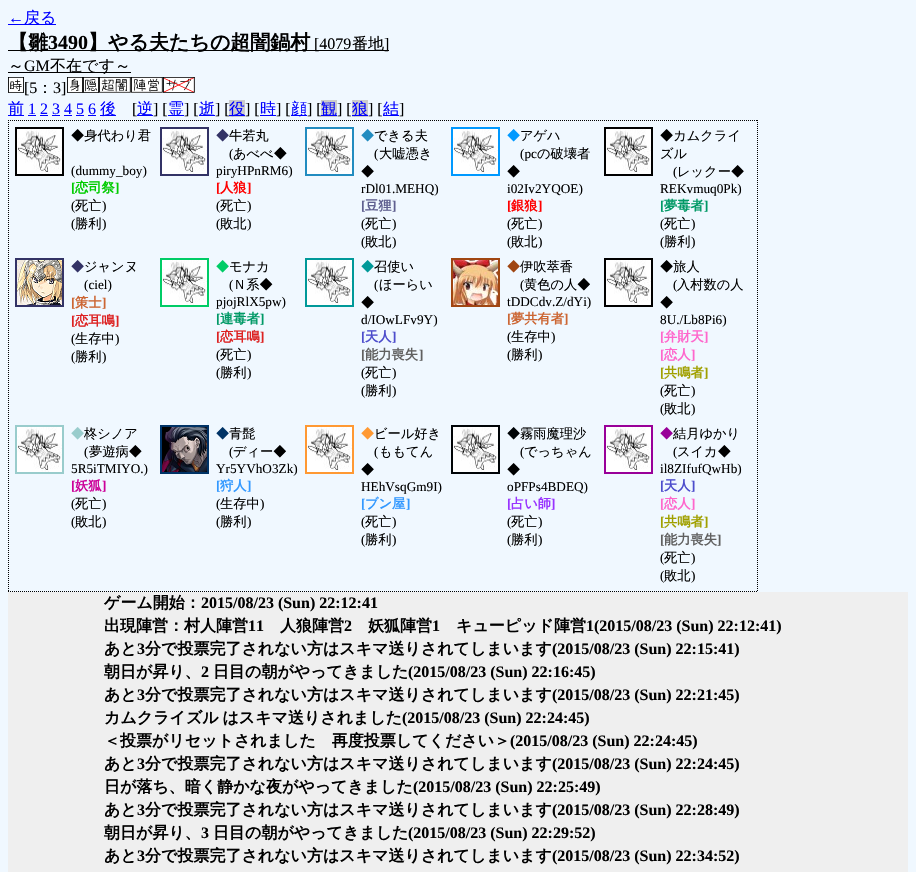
void draw(SkCanvas* canvas) {
  SkPaint paint;
  paint.setAntiAlias(true);
  auto face = [&](const char* family, int weight, float size, bool italic = false) {
    SkFontStyle style(weight, SkFontStyle::kNormal_Width,
      italic ? SkFontStyle::kItalic_Slant : SkFontStyle::kUpright_Slant);
    SkFont result(fontMgr->matchFamilyStyle(family, style), size);
    result.setSubpixel(true);
    return result;
  };
  auto writeSpaced = [&](const char* s, float x, float y, const SkFont& font, const SkPaint& ink, float letter, float word) {
    std::vector<SkGlyphID> glyphs(font.countText(s, strlen(s), SkTextEncoding::kUTF8));
    std::vector<float> xs(glyphs.size());
    font.textToGlyphs(s, strlen(s), SkTextEncoding::kUTF8, glyphs);
    font.getXPos(glyphs, xs, x);
    float extra = 0;
    for (size_t i = 0; i < glyphs.size(); i++) {
      xs[i] += extra;
      extra += letter + word * (glyphs[i] == font.unicharToGlyph(' '));
    }
    canvas->drawTextBlob(SkTextBlob::MakeFromPosHGlyphs(glyphs, xs, y, font), 0, 0, ink);
  };
  auto paste = [&](const char* path, float x, float y, float w, float h) {
    auto image = SkImages::DeferredFromEncodedData(SkData::MakeFromFileName(path));
    canvas->drawImageRect(image, SkRect::MakeXYWH(x, y, w, h), SkSamplingOptions());
  };
  auto shape = [&](const char* data, bool evenOdd = false) {
    SkPath result = *SkParsePath::FromSVGString(data);
    if (evenOdd) result.setFillType(SkPathFillType::kEvenOdd);
    return result;
  };
  canvas->clear(0xfff0f8ff);
  {
    const struct { float x, y, w, h; SkColor color; } items[] = {
      {8, 24, 48, 1, 0xff0000ff},
      {8, 50, 381, 1, 0xff000000},
      {8, 72, 123, 1, 0xff000000},
    };
    for (auto [x, y, w, h, color] : items) {
      paint.setColor(color);
      canvas->drawRect(SkRect::MakeXYWH(x, y, w, h), paint);
    }
  }
  paste("img/1.png", 8, 77, 16, 16);
  paste("img/2.png", 67, 77, 16, 16);
  paste("img/3.png", 83, 77, 16, 16);
  paste("img/4.png", 99, 77, 32, 16);
  paste("img/5.png", 131, 77, 32, 16);
  paste("img/6.png", 163, 77, 32, 16);
  {
    const struct { float x, y, w, h; SkColor color; } items[] = {
      {8, 115, 16, 1, 0xff0000ff},
      {28, 115, 8, 1, 0xff0000ff},
      {100, 115, 16, 1, 0xff0000ff},
      {137, 115, 16, 1, 0xff0000ff},
      {168, 115, 16, 1, 0xff0000ff},
      {199, 115, 16, 1, 0xff0000ff},
      {229, 100, 16, 17, 0xffcccccc},
      {229, 115, 16, 1, 0xff0000ff},
      {260, 115, 16, 1, 0xff0000ff},
      {291, 115, 16, 1, 0xff0000ff},
      {321, 100, 16, 17, 0xffcccccc},
      {321, 115, 16, 1, 0xff0000ff},
      {352, 100, 16, 17, 0xffcccccc},
      {352, 115, 16, 1, 0xff0000ff},
      {383, 115, 16, 1, 0xff0000ff},
      {40, 115, 8, 1, 0xff0000ff},
      {52, 115, 8, 1, 0xff0000ff},
      {64, 115, 8, 1, 0xff0000ff},
      {76, 115, 8, 1, 0xff0000ff},
      {88, 115, 8, 1, 0xff0000ff},
    };
    for (auto [x, y, w, h, color] : items) {
      paint.setColor(color);
      canvas->drawRect(SkRect::MakeXYWH(x, y, w, h), paint);
    }
  }
  paint.setStroke(true);
  paint.setStrokeWidth(1);
  paint.setColor(0xff000000);
  paint.setPathEffect(SkDashPathEffect::Make({{1, 1}}, 0));
  canvas->drawPath(shape("M8 120.5H758"), paint);
  paint.setPathEffect(nullptr);
  paint.setPathEffect(SkDashPathEffect::Make({{1, 1}}, 0));
  canvas->drawPath(shape("M757.5 120V592"), paint);
  paint.setPathEffect(nullptr);
  paint.setPathEffect(SkDashPathEffect::Make({{1, 1}}, 0));
  canvas->drawPath(shape("M8 591.5H758"), paint);
  paint.setPathEffect(nullptr);
  paint.setPathEffect(SkDashPathEffect::Make({{1, 1}}, 0));
  canvas->drawPath(shape("M8.5 120V592"), paint);
  paint.setPathEffect(nullptr);
  paint.setStrokeWidth(2);
  canvas->drawRect(SkRect::MakeXYWH(16, 128, 47, 47), paint);
  paste("img/7.png", 17, 129, 45, 45);
  paint.setColor(0xff333366);
  canvas->drawRect(SkRect::MakeXYWH(161, 128, 47, 47), paint);
  paste("img/7.png", 162, 129, 45, 45);
  paint.setColor(0xff228cc0);
  canvas->drawRect(SkRect::MakeXYWH(306, 128, 47, 47), paint);
  paste("img/7.png", 307, 129, 45, 45);
  paint.setColor(0xff0099ff);
  canvas->drawRect(SkRect::MakeXYWH(452, 128, 47, 47), paint);
  paste("img/7.png", 453, 129, 45, 45);
  paint.setColor(0xff000000);
  canvas->drawRect(SkRect::MakeXYWH(605, 128, 47, 47), paint);
  paste("img/7.png", 606, 129, 45, 45);
  paint.setColor(0xff333366);
  canvas->drawRect(SkRect::MakeXYWH(16, 259, 47, 47), paint);
  paste("img/8.png", 17, 260, 45, 45);
  paint.setColor(0xff00cc66);
  canvas->drawRect(SkRect::MakeXYWH(161, 259, 47, 47), paint);
  paste("img/9.png", 162, 260, 45, 45);
  paint.setColor(0xff009999);
  canvas->drawRect(SkRect::MakeXYWH(306, 259, 47, 47), paint);
  paste("img/9.png", 307, 260, 45, 45);
  paint.setColor(0xffa04612);
  canvas->drawRect(SkRect::MakeXYWH(452, 259, 47, 47), paint);
  paste("img/10.png", 453, 260, 45, 45);
  paint.setColor(0xff000000);
  canvas->drawRect(SkRect::MakeXYWH(605, 259, 47, 47), paint);
  paste("img/9.png", 606, 260, 45, 45);
  paint.setColor(0xff99cccc);
  canvas->drawRect(SkRect::MakeXYWH(16, 426, 47, 47), paint);
  paste("img/9.png", 17, 427, 45, 45);
  paint.setColor(0xff003366);
  canvas->drawRect(SkRect::MakeXYWH(161, 426, 47, 47), paint);
  paste("img/11.png", 162, 427, 45, 45);
  paint.setColor(0xffff9933);
  canvas->drawRect(SkRect::MakeXYWH(306, 426, 47, 47), paint);
  paste("img/9.png", 307, 427, 45, 45);
  paint.setColor(0xff000407);
  canvas->drawRect(SkRect::MakeXYWH(452, 426, 47, 47), paint);
  paste("img/9.png", 453, 427, 45, 45);
  paint.setColor(0xff990099);
  canvas->drawRect(SkRect::MakeXYWH(605, 426, 47, 47), paint);
  paste("img/9.png", 606, 427, 45, 45);
  paint.setStroke(false);
  paint.setColor(0xffefefef);
  canvas->drawRect(SkRect::MakeXYWH(8, 592, 900, 280), paint);
  auto f0 = face("Liberation Serif", 400, 16);
  paint.setColor(0xff0000ff);
  canvas->drawString("←", 8, 23, f0, paint);
  auto f1 = face("WenQuanYi Zen Hei", 500, 16);
  canvas->drawString("戻る", 24, 23, f1, paint);
  auto f2 = face("WenQuanYi Zen Hei", 700, 20);
  paint.setColor(0xff000000);
  canvas->drawString("【雛", 8, 49, f2, paint);
  auto f3 = face("Liberation Serif", 700, 20);
  canvas->drawString("3490", 48, 49, f3, paint);
  canvas->drawString("】やる夫たちの超闇鍋村", 88, 49, f2, paint);
  canvas->drawString("[4079", 314, 49, f0, paint);
  canvas->drawString("番地", 352, 49, f1, paint);
  canvas->drawString("]", 384, 49, f0, paint);
  canvas->drawString("～", 8, 71, f1, paint);
  canvas->drawString("GM", 24, 71, f0, paint);
  canvas->drawString("不在です～", 50, 71, f1, paint);
  canvas->drawString("[5", 24, 93, f0, paint);
  canvas->drawString("：", 37, 93, f1, paint);
  canvas->drawString("3]", 53, 93, f0, paint);
  paint.setColor(0xff0000ff);
  canvas->drawString("前", 8, 114, f1, paint);
  canvas->drawString("1 2 3 4 5 6", 28, 114, f0, paint);
  canvas->drawString("後", 100, 114, f1, paint);
  paint.setColor(0xff000000);
  canvas->drawString("[", 132, 114, f0, paint);
  paint.setColor(0xff0000ff);
  canvas->drawString("逆", 137, 114, f1, paint);
  paint.setColor(0xff000000);
  canvas->drawString("] [", 153, 114, f0, paint);
  paint.setColor(0xff0000ff);
  canvas->drawString("霊", 168, 114, f1, paint);
  paint.setColor(0xff000000);
  canvas->drawString("] [", 184, 114, f0, paint);
  paint.setColor(0xff0000ff);
  canvas->drawString("逝", 199, 114, f1, paint);
  paint.setColor(0xff000000);
  canvas->drawString("] [", 215, 114, f0, paint);
  paint.setColor(0xff0000ff);
  canvas->drawString("役", 229, 114, f1, paint);
  paint.setColor(0xff000000);
  canvas->drawString("] [", 245, 114, f0, paint);
  paint.setColor(0xff0000ff);
  canvas->drawString("時", 260, 114, f1, paint);
  paint.setColor(0xff000000);
  canvas->drawString("] [", 276, 114, f0, paint);
  paint.setColor(0xff0000ff);
  canvas->drawString("顔", 291, 114, f1, paint);
  paint.setColor(0xff000000);
  canvas->drawString("] [", 307, 114, f0, paint);
  paint.setColor(0xff0000ff);
  canvas->drawString("観", 321, 114, f1, paint);
  paint.setColor(0xff000000);
  canvas->drawString("] [", 337, 114, f0, paint);
  paint.setColor(0xff0000ff);
  canvas->drawString("狼", 352, 114, f1, paint);
  paint.setColor(0xff000000);
  canvas->drawString("] [", 368, 114, f0, paint);
  paint.setColor(0xff0000ff);
  canvas->drawString("結", 383, 114, f1, paint);
  paint.setColor(0xff000000);
  canvas->drawString("]", 399, 114, f0, paint);
  auto f4 = face("WenQuanYi Zen Hei", 500, 13.25f);
  canvas->drawString("◆身代わり君", 71, 140, f4, paint);
  auto f5 = face("Liberation Serif", 400, 13.25f);
  canvas->drawString("(dummy_boy)", 71, 175, f5, paint);
  auto f6 = face("Liberation Serif", 700, 13.25f);
  paint.setColor(0xff00cc00);
  canvas->drawString("[", 71, 192, f6, paint);
  auto f7 = face("WenQuanYi Zen Hei", 700, 13.25f);
  canvas->drawString("恋司祭", 75, 192, f7, paint);
  canvas->drawString("]", 115, 192, f6, paint);
  paint.setColor(0xff000000);
  canvas->drawString("(", 71, 210, f5, paint);
  canvas->drawString("死亡", 75, 210, f4, paint);
  canvas->drawString(")", 102, 210, f5, paint);
  canvas->drawString("(", 71, 228, f5, paint);
  canvas->drawString("勝利", 75, 228, f4, paint);
  canvas->drawString(")", 102, 228, f5, paint);
  paint.setColor(0xff333366);
  canvas->drawString("◆", 216, 140, f4, paint);
  paint.setColor(0xff000000);
  canvas->drawString("牛若丸", 229, 140, f4, paint);
  canvas->drawString("(", 229, 158, f5, paint);
  canvas->drawString("あべべ◆", 233, 158, f4, paint);
  canvas->drawString("piryHPnRM6)", 216, 175, f5, paint);
  paint.setColor(0xffff0000);
  canvas->drawString("[", 216, 192, f6, paint);
  canvas->drawString("人狼", 220, 192, f7, paint);
  canvas->drawString("]", 247, 192, f6, paint);
  paint.setColor(0xff000000);
  canvas->drawString("(", 216, 210, f5, paint);
  canvas->drawString("死亡", 220, 210, f4, paint);
  canvas->drawString(")", 247, 210, f5, paint);
  canvas->drawString("(", 216, 228, f5, paint);
  canvas->drawString("敗北", 220, 228, f4, paint);
  canvas->drawString(")", 247, 228, f5, paint);
  paint.setColor(0xff228cc0);
  canvas->drawString("◆", 361, 140, f4, paint);
  paint.setColor(0xff000000);
  canvas->drawString("できる夫", 374, 140, f4, paint);
  canvas->drawString("(", 374, 158, f5, paint);
  canvas->drawString("大嘘憑き", 379, 158, f4, paint);
  canvas->drawString("◆", 361, 176, f4, paint);
  canvas->drawString("rDl01.MEHQ)", 361, 193, f5, paint);
  paint.setColor(0xff606090);
  canvas->drawString("[", 361, 210, f6, paint);
  canvas->drawString("豆狸", 365, 210, f7, paint);
  canvas->drawString("]", 392, 210, f6, paint);
  paint.setColor(0xff000000);
  canvas->drawString("(", 361, 228, f5, paint);
  canvas->drawString("死亡", 365, 228, f4, paint);
  canvas->drawString(")", 392, 228, f5, paint);
  canvas->drawString("(", 361, 246, f5, paint);
  canvas->drawString("敗北", 365, 246, f4, paint);
  canvas->drawString(")", 392, 246, f5, paint);
  paint.setColor(0xff0099ff);
  canvas->drawString("◆", 507, 140, f4, paint);
  paint.setColor(0xff000000);
  canvas->drawString("アゲハ", 520, 140, f4, paint);
  canvas->drawString("(pc", 520, 158, f5, paint);
  canvas->drawString("の破壊者", 537, 158, f4, paint);
  canvas->drawString("◆", 507, 176, f4, paint);
  canvas->drawString("i02Iv2YQOE)", 507, 193, f5, paint);
  paint.setColor(0xffff0000);
  canvas->drawString("[", 507, 210, f6, paint);
  canvas->drawString("銀狼", 511, 210, f7, paint);
  canvas->drawString("]", 538, 210, f6, paint);
  paint.setColor(0xff000000);
  canvas->drawString("(", 507, 228, f5, paint);
  canvas->drawString("死亡", 511, 228, f4, paint);
  canvas->drawString(")", 538, 228, f5, paint);
  canvas->drawString("(", 507, 246, f5, paint);
  canvas->drawString("敗北", 511, 246, f4, paint);
  canvas->drawString(")", 538, 246, f5, paint);
  canvas->drawString("◆カムクライ", 660, 140, f4, paint);
  canvas->drawString("ズル", 660, 158, f4, paint);
  canvas->drawString("(", 673, 176, f5, paint);
  canvas->drawString("レックー◆", 677, 176, f4, paint);
  canvas->drawString("REKvmuq0Pk)", 660, 193, f5, paint);
  paint.setColor(0xff009966);
  canvas->drawString("[", 660, 210, f6, paint);
  canvas->drawString("夢毒者", 664, 210, f7, paint);
  canvas->drawString("]", 704, 210, f6, paint);
  paint.setColor(0xff000000);
  canvas->drawString("(", 660, 228, f5, paint);
  canvas->drawString("死亡", 664, 228, f4, paint);
  canvas->drawString(")", 691, 228, f5, paint);
  canvas->drawString("(", 660, 246, f5, paint);
  canvas->drawString("勝利", 664, 246, f4, paint);
  canvas->drawString(")", 691, 246, f5, paint);
  paint.setColor(0xff333366);
  canvas->drawString("◆", 71, 271, f4, paint);
  paint.setColor(0xff000000);
  canvas->drawString("ジャンヌ", 84, 271, f4, paint);
  canvas->drawString("(ciel)", 84, 289, f5, paint);
  paint.setColor(0xffcc6633);
  canvas->drawString("[", 71, 307, f6, paint);
  canvas->drawString("策士", 75, 307, f7, paint);
  canvas->drawString("]", 102, 307, f6, paint);
  paint.setColor(0xffdd2222);
  canvas->drawString("[", 71, 325, f6, paint);
  canvas->drawString("恋耳鳴", 75, 325, f7, paint);
  canvas->drawString("]", 115, 325, f6, paint);
  paint.setColor(0xff000000);
  canvas->drawString("(", 71, 343, f5, paint);
  canvas->drawString("生存中", 75, 343, f4, paint);
  canvas->drawString(")", 115, 343, f5, paint);
  canvas->drawString("(", 71, 361, f5, paint);
  canvas->drawString("勝利", 75, 361, f4, paint);
  canvas->drawString(")", 102, 361, f5, paint);
  paint.setColor(0xff00cc66);
  canvas->drawString("◆", 216, 271, f4, paint);
  paint.setColor(0xff000000);
  canvas->drawString("モナカ", 229, 271, f4, paint);
  canvas->drawString("(", 229, 289, f5, paint);
  canvas->drawString("Ｎ系◆", 233, 289, f4, paint);
  canvas->drawString("pjojRlX5pw)", 216, 306, f5, paint);
  paint.setColor(0xff009966);
  canvas->drawString("[", 216, 323, f6, paint);
  canvas->drawString("連毒者", 220, 323, f7, paint);
  canvas->drawString("]", 260, 323, f6, paint);
  paint.setColor(0xffdd2222);
  canvas->drawString("[", 216, 341, f6, paint);
  canvas->drawString("恋耳鳴", 220, 341, f7, paint);
  canvas->drawString("]", 260, 341, f6, paint);
  paint.setColor(0xff000000);
  canvas->drawString("(", 216, 359, f5, paint);
  canvas->drawString("死亡", 220, 359, f4, paint);
  canvas->drawString(")", 247, 359, f5, paint);
  canvas->drawString("(", 216, 377, f5, paint);
  canvas->drawString("勝利", 220, 377, f4, paint);
  canvas->drawString(")", 247, 377, f5, paint);
  paint.setColor(0xff009999);
  canvas->drawString("◆", 361, 271, f4, paint);
  paint.setColor(0xff000000);
  canvas->drawString("召使い", 374, 271, f4, paint);
  canvas->drawString("(", 374, 289, f5, paint);
  canvas->drawString("ほーらい", 379, 289, f4, paint);
  canvas->drawString("◆", 361, 307, f4, paint);
  canvas->drawString("d/IOwLFv9Y)", 361, 324, f5, paint);
  paint.setColor(0xff4d4dcc);
  canvas->drawString("[", 361, 341, f6, paint);
  canvas->drawString("天人", 365, 341, f7, paint);
  canvas->drawString("]", 392, 341, f6, paint);
  paint.setColor(0xff606060);
  canvas->drawString("[", 361, 359, f6, paint);
  canvas->drawString("能力喪失", 365, 359, f7, paint);
  canvas->drawString("]", 419, 359, f6, paint);
  paint.setColor(0xff000000);
  canvas->drawString("(", 361, 377, f5, paint);
  canvas->drawString("死亡", 365, 377, f4, paint);
  canvas->drawString(")", 392, 377, f5, paint);
  canvas->drawString("(", 361, 395, f5, paint);
  canvas->drawString("勝利", 365, 395, f4, paint);
  canvas->drawString(")", 392, 395, f5, paint);
  paint.setColor(0xffa04612);
  canvas->drawString("◆", 507, 271, f4, paint);
  paint.setColor(0xff000000);
  canvas->drawString("伊吹萃香", 520, 271, f4, paint);
  canvas->drawString("(", 520, 289, f5, paint);
  canvas->drawString("黄色の人◆", 524, 289, f4, paint);
  canvas->drawString("tDDCdv.Z/dYi)", 507, 306, f5, paint);
  paint.setColor(0xffcc6633);
  canvas->drawString("[", 507, 323, f6, paint);
  canvas->drawString("夢共有者", 511, 323, f7, paint);
  canvas->drawString("]", 564, 323, f6, paint);
  paint.setColor(0xff000000);
  canvas->drawString("(", 507, 341, f5, paint);
  canvas->drawString("生存中", 511, 341, f4, paint);
  canvas->drawString(")", 551, 341, f5, paint);
  canvas->drawString("(", 507, 359, f5, paint);
  canvas->drawString("勝利", 511, 359, f4, paint);
  canvas->drawString(")", 538, 359, f5, paint);
  canvas->drawString("◆旅人", 660, 271, f4, paint);
  canvas->drawString("(", 673, 289, f5, paint);
  canvas->drawString("入村数の人", 677, 289, f4, paint);
  canvas->drawString("◆", 660, 307, f4, paint);
  canvas->drawString("8U./Lb8Pi6)", 660, 324, f5, paint);
  paint.setColor(0xffff66cc);
  canvas->drawString("[", 660, 341, f6, paint);
  canvas->drawString("弁財天", 664, 341, f7, paint);
  canvas->drawString("]", 704, 341, f6, paint);
  canvas->drawString("[", 660, 359, f6, paint);
  canvas->drawString("恋人", 664, 359, f7, paint);
  canvas->drawString("]", 691, 359, f6, paint);
  paint.setColor(0xffa0a000);
  canvas->drawString("[", 660, 377, f6, paint);
  canvas->drawString("共鳴者", 664, 377, f7, paint);
  canvas->drawString("]", 704, 377, f6, paint);
  paint.setColor(0xff000000);
  canvas->drawString("(", 660, 395, f5, paint);
  canvas->drawString("死亡", 664, 395, f4, paint);
  canvas->drawString(")", 691, 395, f5, paint);
  canvas->drawString("(", 660, 413, f5, paint);
  canvas->drawString("敗北", 664, 413, f4, paint);
  canvas->drawString(")", 691, 413, f5, paint);
  paint.setColor(0xff99cccc);
  canvas->drawString("◆", 71, 438, f4, paint);
  paint.setColor(0xff000000);
  canvas->drawString("柊シノア", 84, 438, f4, paint);
  canvas->drawString("(", 84, 456, f5, paint);
  canvas->drawString("夢遊病◆", 89, 456, f4, paint);
  canvas->drawString("5R5iTMIYO.)", 71, 473, f5, paint);
  paint.setColor(0xffcc0099);
  canvas->drawString("[", 71, 490, f6, paint);
  canvas->drawString("妖狐", 75, 490, f7, paint);
  canvas->drawString("]", 102, 490, f6, paint);
  paint.setColor(0xff000000);
  canvas->drawString("(", 71, 508, f5, paint);
  canvas->drawString("死亡", 75, 508, f4, paint);
  canvas->drawString(")", 102, 508, f5, paint);
  canvas->drawString("(", 71, 526, f5, paint);
  canvas->drawString("敗北", 75, 526, f4, paint);
  canvas->drawString(")", 102, 526, f5, paint);
  paint.setColor(0xff003366);
  canvas->drawString("◆", 216, 438, f4, paint);
  paint.setColor(0xff000000);
  canvas->drawString("青髭", 229, 438, f4, paint);
  canvas->drawString("(", 229, 456, f5, paint);
  canvas->drawString("ディー◆", 233, 456, f4, paint);
  canvas->drawString("Yr5YVhO3Zk)", 216, 473, f5, paint);
  paint.setColor(0xff3399ff);
  canvas->drawString("[", 216, 490, f6, paint);
  canvas->drawString("狩人", 220, 490, f7, paint);
  canvas->drawString("]", 247, 490, f6, paint);
  paint.setColor(0xff000000);
  canvas->drawString("(", 216, 508, f5, paint);
  canvas->drawString("生存中", 220, 508, f4, paint);
  canvas->drawString(")", 260, 508, f5, paint);
  canvas->drawString("(", 216, 526, f5, paint);
  canvas->drawString("勝利", 220, 526, f4, paint);
  canvas->drawString(")", 247, 526, f5, paint);
  paint.setColor(0xffff9933);
  canvas->drawString("◆", 361, 438, f4, paint);
  paint.setColor(0xff000000);
  canvas->drawString("ビール好き", 374, 438, f4, paint);
  canvas->drawString("(", 374, 456, f5, paint);
  canvas->drawString("ももてん", 379, 456, f4, paint);
  canvas->drawString("◆", 361, 474, f4, paint);
  canvas->drawString("HEhVsqGm9I)", 361, 491, f5, paint);
  paint.setColor(0xff3399ff);
  canvas->drawString("[", 361, 508, f6, paint);
  canvas->drawString("ブン屋", 365, 508, f7, paint);
  canvas->drawString("]", 406, 508, f6, paint);
  paint.setColor(0xff000000);
  canvas->drawString("(", 361, 526, f5, paint);
  canvas->drawString("死亡", 365, 526, f4, paint);
  canvas->drawString(")", 392, 526, f5, paint);
  canvas->drawString("(", 361, 544, f5, paint);
  canvas->drawString("勝利", 365, 544, f4, paint);
  canvas->drawString(")", 392, 544, f5, paint);
  paint.setColor(0xff000407);
  canvas->drawString("◆", 507, 438, f4, paint);
  paint.setColor(0xff000000);
  canvas->drawString("霧雨魔理沙", 520, 438, f4, paint);
  canvas->drawString("(", 520, 456, f5, paint);
  canvas->drawString("でっちゃん", 524, 456, f4, paint);
  canvas->drawString("◆", 507, 474, f4, paint);
  canvas->drawString("oPFPs4BDEQ)", 507, 491, f5, paint);
  paint.setColor(0xff9933ff);
  canvas->drawString("[", 507, 508, f6, paint);
  canvas->drawString("占い師", 511, 508, f7, paint);
  canvas->drawString("]", 551, 508, f6, paint);
  paint.setColor(0xff000000);
  canvas->drawString("(", 507, 526, f5, paint);
  canvas->drawString("死亡", 511, 526, f4, paint);
  canvas->drawString(")", 538, 526, f5, paint);
  canvas->drawString("(", 507, 544, f5, paint);
  canvas->drawString("勝利", 511, 544, f4, paint);
  canvas->drawString(")", 538, 544, f5, paint);
  paint.setColor(0xff990099);
  canvas->drawString("◆", 660, 438, f4, paint);
  paint.setColor(0xff000000);
  canvas->drawString("結月ゆかり", 673, 438, f4, paint);
  canvas->drawString("(", 673, 456, f5, paint);
  canvas->drawString("スイカ◆", 677, 456, f4, paint);
  canvas->drawString("il8ZIfufQwHb)", 660, 473, f5, paint);
  paint.setColor(0xff4d4dcc);
  canvas->drawString("[", 660, 490, f6, paint);
  canvas->drawString("天人", 664, 490, f7, paint);
  canvas->drawString("]", 691, 490, f6, paint);
  paint.setColor(0xffff66cc);
  canvas->drawString("[", 660, 508, f6, paint);
  canvas->drawString("恋人", 664, 508, f7, paint);
  canvas->drawString("]", 691, 508, f6, paint);
  paint.setColor(0xffa0a000);
  canvas->drawString("[", 660, 526, f6, paint);
  canvas->drawString("共鳴者", 664, 526, f7, paint);
  canvas->drawString("]", 704, 526, f6, paint);
  paint.setColor(0xff606060);
  canvas->drawString("[", 660, 544, f6, paint);
  canvas->drawString("能力喪失", 664, 544, f7, paint);
  canvas->drawString("]", 717, 544, f6, paint);
  paint.setColor(0xff000000);
  canvas->drawString("(", 660, 562, f5, paint);
  canvas->drawString("死亡", 664, 562, f4, paint);
  canvas->drawString(")", 691, 562, f5, paint);
  canvas->drawString("(", 660, 580, f5, paint);
  canvas->drawString("敗北", 664, 580, f4, paint);
  canvas->drawString(")", 691, 580, f5, paint);
  auto f8 = face("WenQuanYi Zen Hei", 700, 16);
  canvas->drawString("ゲーム開始：", 104, 608, f8, paint);
  auto f9 = face("Liberation Serif", 700, 16);
  canvas->drawString("2015/08/23 (Sun) 22:12:41", 201, 608, f9, paint);
  canvas->drawString("出現陣営：村人陣営", 104, 631, f8, paint);
  canvas->drawString("11", 248, 631, f9, paint);
  canvas->drawString("人狼陣営", 280, 631, f8, paint);
  canvas->drawString("2", 344, 631, f9, paint);
  canvas->drawString("妖狐陣営", 368, 631, f8, paint);
  canvas->drawString("1", 432, 631, f9, paint);
  canvas->drawString("キューピッド陣営", 456, 631, f8, paint);
  canvas->drawString("1(2015/08/23 (Sun) 22:12:41)", 586, 631, f9, paint);
  canvas->drawString("あと", 104, 654, f8, paint);
  canvas->drawString("3", 137, 654, f9, paint);
  canvas->drawString("分で投票完了されない方はスキマ送りされてしまいます", 145, 654, f8, paint);
  canvas->drawString("(2015/08/23 (Sun) 22:15:41)", 552, 654, f9, paint);
  canvas->drawString("朝日が昇り、", 104, 677, f8, paint);
  canvas->drawString("2", 201, 677, f9, paint);
  canvas->drawString("日目の朝がやってきました", 213, 677, f8, paint);
  canvas->drawString("(2015/08/23 (Sun) 22:16:45)", 408, 677, f9, paint);
  canvas->drawString("あと", 104, 700, f8, paint);
  canvas->drawString("3", 137, 700, f9, paint);
  canvas->drawString("分で投票完了されない方はスキマ送りされてしまいます", 145, 700, f8, paint);
  canvas->drawString("(2015/08/23 (Sun) 22:21:45)", 552, 700, f9, paint);
  writeSpaced("カムクライズル はスキマ送りされました", 104, 723, f8, paint, 0, -1);
  canvas->drawString("(2015/08/23 (Sun) 22:24:45)", 402, 723, f9, paint);
  canvas->drawString("＜投票がリセットされました　再度投票してください＞", 104, 746, f8, paint);
  canvas->drawString("(2015/08/23 (Sun) 22:24:45)", 510, 746, f9, paint);
  canvas->drawString("あと", 104, 769, f8, paint);
  canvas->drawString("3", 137, 769, f9, paint);
  canvas->drawString("分で投票完了されない方はスキマ送りされてしまいます", 145, 769, f8, paint);
  canvas->drawString("(2015/08/23 (Sun) 22:24:45)", 552, 769, f9, paint);
  canvas->drawString("日が落ち、暗く静かな夜がやってきました", 104, 792, f8, paint);
  canvas->drawString("(2015/08/23 (Sun) 22:25:49)", 413, 792, f9, paint);
  canvas->drawString("あと", 104, 815, f8, paint);
  canvas->drawString("3", 137, 815, f9, paint);
  canvas->drawString("分で投票完了されない方はスキマ送りされてしまいます", 145, 815, f8, paint);
  canvas->drawString("(2015/08/23 (Sun) 22:28:49)", 552, 815, f9, paint);
  canvas->drawString("朝日が昇り、", 104, 838, f8, paint);
  canvas->drawString("3", 201, 838, f9, paint);
  canvas->drawString("日目の朝がやってきました", 213, 838, f8, paint);
  canvas->drawString("(2015/08/23 (Sun) 22:29:52)", 408, 838, f9, paint);
  canvas->drawString("あと", 104, 861, f8, paint);
  canvas->drawString("3", 137, 861, f9, paint);
  canvas->drawString("分で投票完了されない方はスキマ送りされてしまいます", 145, 861, f8, paint);
  canvas->drawString("(2015/08/23 (Sun) 22:34:52)", 552, 861, f9, paint);
}
